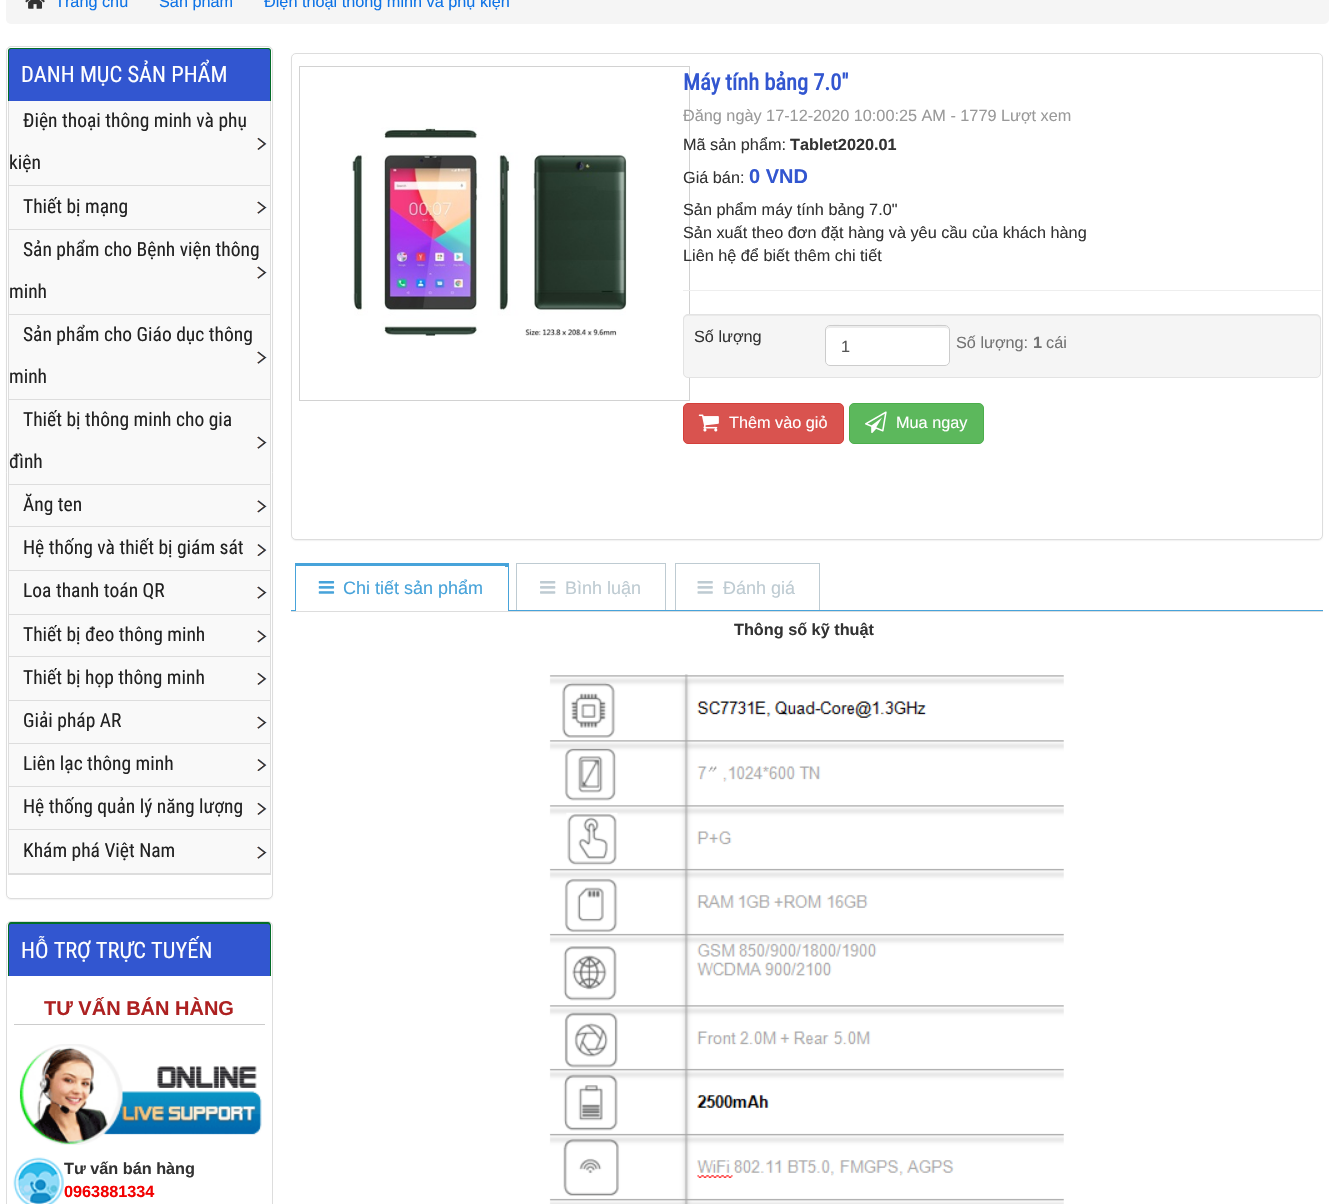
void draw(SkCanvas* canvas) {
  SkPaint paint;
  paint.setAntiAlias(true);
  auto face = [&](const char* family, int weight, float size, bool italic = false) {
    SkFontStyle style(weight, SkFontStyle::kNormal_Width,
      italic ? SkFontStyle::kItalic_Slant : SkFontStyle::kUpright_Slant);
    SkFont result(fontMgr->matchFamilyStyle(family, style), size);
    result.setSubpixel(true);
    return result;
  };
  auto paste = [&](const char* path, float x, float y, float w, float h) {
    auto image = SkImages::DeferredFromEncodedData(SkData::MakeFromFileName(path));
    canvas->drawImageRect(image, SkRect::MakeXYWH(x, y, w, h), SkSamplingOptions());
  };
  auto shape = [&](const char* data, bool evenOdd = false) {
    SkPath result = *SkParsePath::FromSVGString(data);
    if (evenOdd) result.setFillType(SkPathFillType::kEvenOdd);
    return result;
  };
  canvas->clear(0xffffffff);
  paint.setColor(0xfff5f5f5);
  canvas->drawRoundRect(SkRect::MakeXYWH(6, -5, 1323, 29), 5, 5, paint);
  paste("img/1.png", 25, 0, 20, 9);
  paint.setColor(0x0d000000);
  paint.setMaskFilter(SkMaskFilter::MakeBlur(kNormal_SkBlurStyle, 0.5f));
  canvas->drawRoundRect(SkRect::MakeXYWH(6, 48, 267, 852), 5, 5, paint);
  paint.setMaskFilter(nullptr);
  paint.setColor(0xffffffff);
  canvas->drawRoundRect(SkRect::MakeXYWH(6.5f, 46.5f, 266, 852), 4.5f, 4.5f, paint);
  paint.setStroke(true);
  paint.setStrokeWidth(1);
  paint.setColor(0xffdddddd);
  canvas->drawRoundRect(SkRect::MakeXYWH(6.5f, 46.5f, 266, 852), 4.5f, 4.5f, paint);
  paint.setStroke(false);
  paint.setColor(0xff3256d0);
  canvas->drawPath(shape("M12 48H267C269 48 271 50 271 52V101H8V52C8 50 10 48 12 48Z"), paint);
  paint.setColor(0xff036d28);
  canvas->drawPath(shape("M11 48H268C270 48 271 49 271 51V101H8V51C8 49 9 48 11 48ZM11 49H268C269 49 270 50 270 51V101H9V51C9 50 10 49 11 49Z", true), paint);
  {
    const struct { float x, y, w, h; SkColor color; } items[] = {
      {9, 101, 261, 772, 0xfff9f9f9},
      {270, 101, 1, 774, 0xffdddddd},
      {8, 874, 263, 1, 0xffdddddd},
      {8, 101, 1, 774, 0xffdddddd},
    };
    for (auto [x, y, w, h, color] : items) {
      paint.setColor(color);
      canvas->drawRect(SkRect::MakeXYWH(x, y, w, h), paint);
    }
  }
  paste("img/2.png", 257, 137, 10, 13);
  canvas->drawRect(SkRect::MakeXYWH(9, 185, 261, 1), paint);
  paste("img/3.png", 257, 201, 10, 13);
  canvas->drawRect(SkRect::MakeXYWH(9, 229, 261, 1), paint);
  paste("img/3.png", 257, 266, 10, 13);
  canvas->drawRect(SkRect::MakeXYWH(9, 314, 261, 1), paint);
  paste("img/3.png", 257, 351, 10, 13);
  canvas->drawRect(SkRect::MakeXYWH(9, 399, 261, 1), paint);
  paste("img/3.png", 257, 436, 10, 13);
  canvas->drawRect(SkRect::MakeXYWH(9, 484, 261, 1), paint);
  paste("img/4.png", 257, 500, 10, 13);
  canvas->drawRect(SkRect::MakeXYWH(9, 526, 261, 1), paint);
  paste("img/5.png", 257, 544, 10, 12);
  canvas->drawRect(SkRect::MakeXYWH(9, 570, 261, 1), paint);
  paste("img/3.png", 257, 586, 10, 13);
  canvas->drawRect(SkRect::MakeXYWH(9, 614, 261, 1), paint);
  paste("img/4.png", 257, 630, 10, 13);
  canvas->drawRect(SkRect::MakeXYWH(9, 656, 261, 1), paint);
  paste("img/2.png", 257, 672, 10, 13);
  canvas->drawRect(SkRect::MakeXYWH(9, 700, 261, 1), paint);
  paste("img/3.png", 257, 716, 10, 13);
  canvas->drawRect(SkRect::MakeXYWH(9, 743, 261, 1), paint);
  paste("img/5.png", 257, 759, 10, 12);
  canvas->drawRect(SkRect::MakeXYWH(9, 786, 261, 1), paint);
  paste("img/2.png", 257, 802, 10, 13);
  canvas->drawRect(SkRect::MakeXYWH(9, 829, 261, 1), paint);
  paste("img/3.png", 257, 846, 10, 13);
  canvas->drawRect(SkRect::MakeXYWH(9, 873, 261, 1), paint);
  paint.setStroke(true);
  canvas->drawRoundRect(SkRect::MakeXYWH(6.5f, 921.5f, 266, 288), 4.5f, 4.5f, paint);
  paint.setStroke(false);
  paint.setColor(0xff3256d0);
  canvas->drawPath(shape("M12 923H267C269 923 271 925 271 927V976H8V927C8 925 10 923 12 923Z"), paint);
  paint.setColor(0xff036d28);
  canvas->drawPath(shape("M11 922H268C270 922 271 924 271 926V976H8V926C8 924 9 922 11 922ZM11 924H268C269 924 270 925 270 926V976H9V926C9 925 10 924 11 924Z", true), paint);
  paint.setColor(0xffcccccc);
  canvas->drawRect(SkRect::MakeXYWH(14, 1024, 251, 1), paint);
  paste("img/6.png", 19, 1044, 243, 101);
  paste("img/7.png", 13, 1157, 51, 47);
  paint.setColor(0x0d000000);
  paint.setMaskFilter(SkMaskFilter::MakeBlur(kNormal_SkBlurStyle, 0.5f));
  canvas->drawRoundRect(SkRect::MakeXYWH(291, 54, 1032, 487), 5, 5, paint);
  paint.setMaskFilter(nullptr);
  paint.setColor(0xffffffff);
  canvas->drawRoundRect(SkRect::MakeXYWH(291.5f, 53.5f, 1031, 486), 4.5f, 4.5f, paint);
  paint.setStroke(true);
  paint.setColor(0xffdddddd);
  canvas->drawRoundRect(SkRect::MakeXYWH(291.5f, 53.5f, 1031, 486), 4.5f, 4.5f, paint);
  paint.setColor(0xffd2d2d2);
  canvas->drawRect(SkRect::MakeXYWH(299.5f, 66.5f, 390, 334), paint);
  paste("img/8.png", 351, 127, 276, 209);
  paint.setStroke(false);
  paint.setColor(0xffeeeeee);
  canvas->drawRect(SkRect::MakeXYWH(683, 290, 638, 1), paint);
  paint.setColor(0xfff5f5f5);
  canvas->drawRoundRect(SkRect::MakeXYWH(683, 314, 638, 64), 5, 5, paint);
  paint.setColor(0xffe9e9e9);
  canvas->drawPath(shape("M688 316H1316C1318 316 1320 318 1320 320C1320 317 1319 315 1316 315H688C685 315 684 317 684 320C684 318 685 316 688 316Z"), paint);
  paint.setStroke(true);
  paint.setColor(0xffe3e3e3);
  canvas->drawRoundRect(SkRect::MakeXYWH(683.5f, 314.5f, 637, 63), 4.5f, 4.5f, paint);
  paint.setStroke(false);
  paint.setColor(0xffffffff);
  canvas->drawRoundRect(SkRect::MakeXYWH(825, 325, 125, 41), 5, 5, paint);
  paint.setColor(0xffececec);
  canvas->drawPath(shape("M830 328H945C947 328 949 329 949 331C949 321 929 326 926 326H849C846 326 826 321 826 331C826 329 828 328 830 328Z"), paint);
  paint.setStroke(true);
  paint.setColor(0xffcccccc);
  canvas->drawRoundRect(SkRect::MakeXYWH(825.5f, 325.5f, 124, 40), 4.5f, 4.5f, paint);
  paint.setStroke(false);
  paint.setColor(0xffd9534f);
  canvas->drawRoundRect(SkRect::MakeXYWH(683.5f, 403.5f, 160, 40), 4.5f, 4.5f, paint);
  paint.setStroke(true);
  paint.setColor(0xffd43f3a);
  canvas->drawRoundRect(SkRect::MakeXYWH(683.5f, 403.5f, 160, 40), 4.5f, 4.5f, paint);
  paste("img/9.png", 698, 414, 21, 18);
  paint.setStroke(false);
  paint.setColor(0xff5cb85c);
  canvas->drawRoundRect(SkRect::MakeXYWH(849.5f, 403.5f, 134, 40), 4.5f, 4.5f, paint);
  paint.setStroke(true);
  paint.setColor(0xff4cae4c);
  canvas->drawRoundRect(SkRect::MakeXYWH(849.5f, 403.5f, 134, 40), 4.5f, 4.5f, paint);
  paste("img/10.png", 865, 411, 22, 22);
  paint.setStroke(false);
  {
    const struct { float x, y, w, h; SkColor color; } items[] = {
      {291, 611, 1032, 1, 0xffdddddd},
      {296, 564, 212, 3, 0xff47a3da},
      {295, 563, 214, 1, 0xff47a3da},
      {508, 563, 1, 48, 0xff47a3da},
      {295, 563, 1, 48, 0xff47a3da},
      {296, 566, 209, 1, 0xffffffff},
    };
    for (auto [x, y, w, h, color] : items) {
      paint.setColor(color);
      canvas->drawRect(SkRect::MakeXYWH(x, y, w, h), paint);
    }
  }
  paste("img/11.png", 318, 581, 17, 13);
  {
    const struct { float x, y, w, h; SkColor color; } items[] = {
      {291, 610, 5, 1, 0xff47a3da},
      {516, 563, 150, 1, 0xffbecbd2},
      {665, 563, 1, 48, 0xffbecbd2},
      {516, 563, 1, 48, 0xffbecbd2},
      {675, 563, 145, 1, 0xffbecbd2},
      {819, 563, 1, 48, 0xffbecbd2},
      {675, 563, 1, 48, 0xffbecbd2},
      {508, 610, 815, 1, 0xff47a3da},
    };
    for (auto [x, y, w, h, color] : items) {
      paint.setColor(color);
      canvas->drawRect(SkRect::MakeXYWH(x, y, w, h), paint);
    }
  }
  paste("img/12.png", 540, 581, 16, 13);
  paste("img/13.png", 697, 581, 16, 13);
  paste("img/14.png", 549, 674, 515, 530);
  auto f0 = face("Liberation Sans", 400, 16.25f);
  paint.setColor(0xff0e73e6);
  {
    const struct { const char* s; float x, y; } items[] = {
      {"Trang chủ", 55, 7},
      {"Sản phẩm", 159, 7},
      {"Điện thoại thông minh và phụ kiện", 264, 7},
    };
    for (auto [s, x, y] : items) {
      canvas->drawString(s, x, y, f0, paint);
    }
  }
  auto f1 = face("Roboto Condensed", 400, 22.5f);
  paint.setColor(0xffffffff);
  canvas->drawString("DANH MỤC SẢN PHẨM", 21, 82, f1, paint);
  auto f2 = face("Roboto Condensed", 400, 19.5f);
  paint.setColor(0xff222222);
  {
    const struct { const char* s; float x, y; } items[] = {
      {"Điện thoại thông minh và phụ", 23, 127},
      {"kiện", 9, 169},
      {"Thiết bị mạng", 23, 213},
      {"Sản phẩm cho Bệnh viện thông", 23, 256},
      {"minh", 9, 298},
      {"Sản phẩm cho Giáo dục thông", 23, 341},
      {"minh", 9, 383},
      {"Thiết bị thông minh cho gia", 23, 426},
      {"đình", 9, 468},
      {"Ăng ten", 23, 511},
      {"Hệ thống và thiết bị giám sát", 23, 554},
      {"Loa thanh toán QR", 23, 597},
      {"Thiết bị đeo thông minh", 23, 641},
      {"Thiết bị họp thông minh", 23, 684},
      {"Giải pháp AR", 23, 727},
      {"Liên lạc thông minh", 23, 770},
      {"Hệ thống quản lý năng lượng", 23, 813},
      {"Khám phá Việt Nam", 23, 857},
    };
    for (auto [s, x, y] : items) {
      canvas->drawString(s, x, y, f2, paint);
    }
  }
  paint.setColor(0xffffffff);
  canvas->drawString("HỖ TRỢ TRỰC TUYẾN", 21, 958, f1, paint);
  auto f3 = face("Liberation Sans", 700, 20);
  paint.setColor(0xffad2121);
  canvas->drawString("TƯ VẤN BÁN HÀNG", 44, 1015, f3, paint);
  auto f4 = face("Liberation Sans", 700, 16.25f);
  paint.setColor(0xff333333);
  canvas->drawString("Tư vấn bán hàng", 64, 1174, f4, paint);
  paint.setColor(0xfff20000);
  canvas->drawString("0963881334", 64, 1197, f4, paint);
  auto f5 = face("Roboto Condensed", 700, 22.5f);
  paint.setColor(0xff3256d0);
  canvas->drawString("Máy tính bảng 7.0\"", 683, 90, f5, paint);
  paint.setColor(0xff999999);
  canvas->drawString("Đăng ngày 17-12-2020 10:00:25 AM - 1779 Lượt xem", 683, 121, f0, paint);
  paint.setColor(0xff333333);
  canvas->drawString("Mã sản phẩm:", 683, 150, f0, paint);
  canvas->drawString("Tablet2020.01", 790, 150, f4, paint);
  canvas->drawString("Giá bán:", 683, 183, f0, paint);
  paint.setColor(0xff3256d0);
  canvas->drawString("0 VND", 749, 183, f3, paint);
  paint.setColor(0xff333333);
  {
    const struct { const char* s; float x, y; } items[] = {
      {"Sản phẩm máy tính bảng 7.0\"", 683, 215},
      {"Sản xuất theo đơn đặt hàng và yêu cầu của khách hàng", 683, 238},
      {"Liên hệ để biết thêm chi tiết", 683, 261},
      {"Số lượng", 694, 342},
    };
    for (auto [s, x, y] : items) {
      canvas->drawString(s, x, y, f0, paint);
    }
  }
  paint.setColor(0xff555555);
  canvas->drawString("1", 841, 352, f0, paint);
  paint.setColor(0xff737373);
  canvas->drawString("Số lượng:", 956, 348, f0, paint);
  canvas->drawString("1", 1033, 348, f4, paint);
  canvas->drawString("cái", 1046, 348, f0, paint);
  paint.setColor(0xffffffff);
  canvas->drawString("Thêm vào giỏ", 729, 428, f0, paint);
  canvas->drawString("Mua ngay", 896, 428, f0, paint);
  auto f6 = face("Liberation Sans", 400, 18);
  paint.setColor(0xff47a3da);
  canvas->drawString("Chi tiết sản phẩm", 343, 594, f6, paint);
  paint.setColor(0xffbecbd2);
  canvas->drawString("Bình luận", 565, 594, f6, paint);
  canvas->drawString("Đánh giá", 723, 594, f6, paint);
  paint.setColor(0xff333333);
  canvas->drawString("Thông số kỹ thuật", 734, 635, f4, paint);
}
